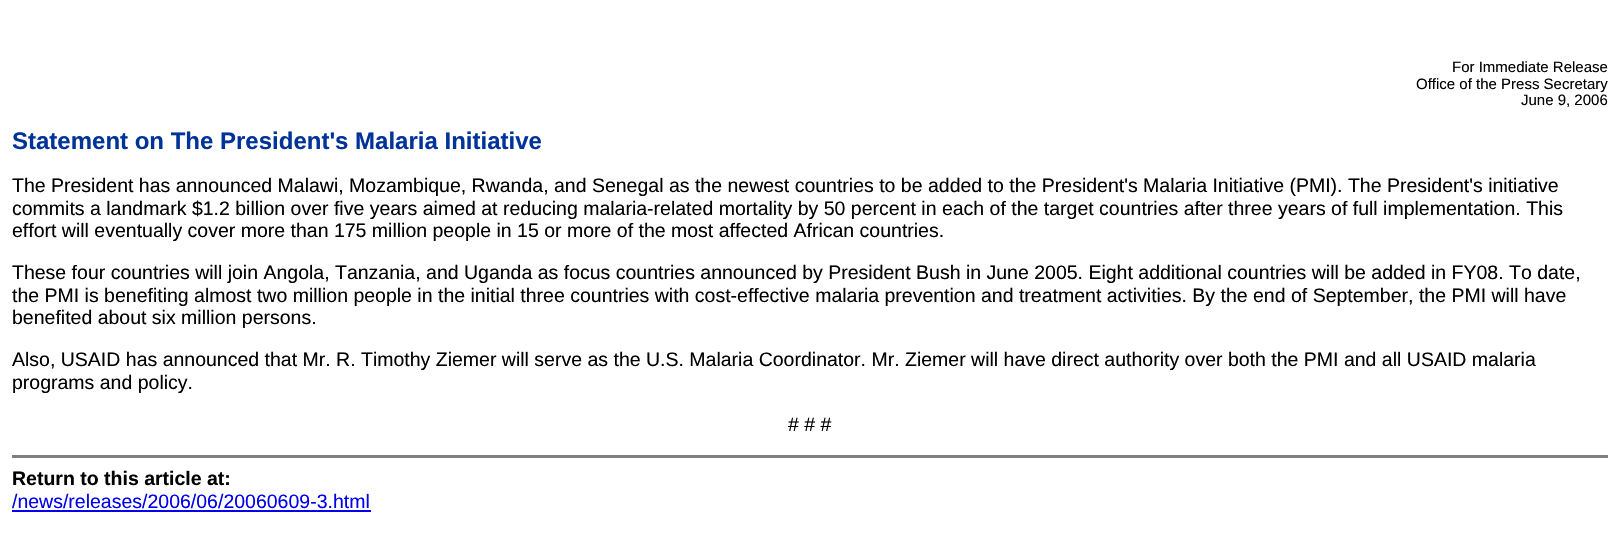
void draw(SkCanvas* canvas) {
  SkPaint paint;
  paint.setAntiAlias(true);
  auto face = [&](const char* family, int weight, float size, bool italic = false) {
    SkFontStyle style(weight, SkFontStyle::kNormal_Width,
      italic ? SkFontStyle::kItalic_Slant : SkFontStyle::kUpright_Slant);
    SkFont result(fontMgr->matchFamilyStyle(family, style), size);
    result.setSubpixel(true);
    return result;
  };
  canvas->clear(0xffffffff);
  paint.setColor(0xff808080);
  canvas->drawRect(SkRect::MakeXYWH(12, 455, 1596, 3), paint);
  paint.setColor(0xff0000ee);
  canvas->drawRect(SkRect::MakeXYWH(12, 510, 359, 2), paint);
  auto f0 = face("Liberation Sans", 400, 15);
  paint.setColor(0xff000000);
  {
    const struct { const char* s; float x, y; } items[] = {
      {"For Immediate Release", 1452, 72},
      {"Office of the Press Secretary", 1416, 89},
      {"June 9, 2006", 1521, 105},
    };
    for (auto [s, x, y] : items) {
      canvas->drawString(s, x, y, f0, paint);
    }
  }
  auto f1 = face("Liberation Sans", 700, 24);
  paint.setColor(0xff003399);
  canvas->drawString("Statement on The President's Malaria Initiative", 12, 149, f1, paint);
  auto f2 = face("Liberation Sans", 400, 19.5f);
  paint.setColor(0xff000000);
  {
    const struct { const char* s; float x, y; } items[] = {
      {"The President has announced Malawi, Mozambique, Rwanda, and Senegal as the newest countries to be added to the President's Malaria Initiative (PMI). The President's initiative", 12, 192},
      {"commits a landmark $1.2 billion over five years aimed at reducing malaria-related mortality by 50 percent in each of the target countries after three years of full implementation. This", 12, 215},
      {"effort will eventually cover more than 175 million people in 15 or more of the most affected African countries.", 12, 237},
      {"These four countries will join Angola, Tanzania, and Uganda as focus countries announced by President Bush in June 2005. Eight additional countries will be added in FY08. To date,", 12, 279},
      {"the PMI is benefiting almost two million people in the initial three countries with cost-effective malaria prevention and treatment activities. By the end of September, the PMI will have", 12, 302},
      {"benefited about six million persons.", 12, 324},
      {"Also, USAID has announced that Mr. R. Timothy Ziemer will serve as the U.S. Malaria Coordinator. Mr. Ziemer will have direct authority over both the PMI and all USAID malaria", 12, 366},
      {"programs and policy.", 12, 389},
      {"# # #", 788, 431},
    };
    for (auto [s, x, y] : items) {
      canvas->drawString(s, x, y, f2, paint);
    }
  }
  auto f3 = face("Liberation Sans", 700, 19.5f);
  canvas->drawString("Return to this article at:", 12, 485, f3, paint);
  paint.setColor(0xff0000ee);
  canvas->drawString("/news/releases/2006/06/20060609-3.html", 12, 508, f2, paint);
}
